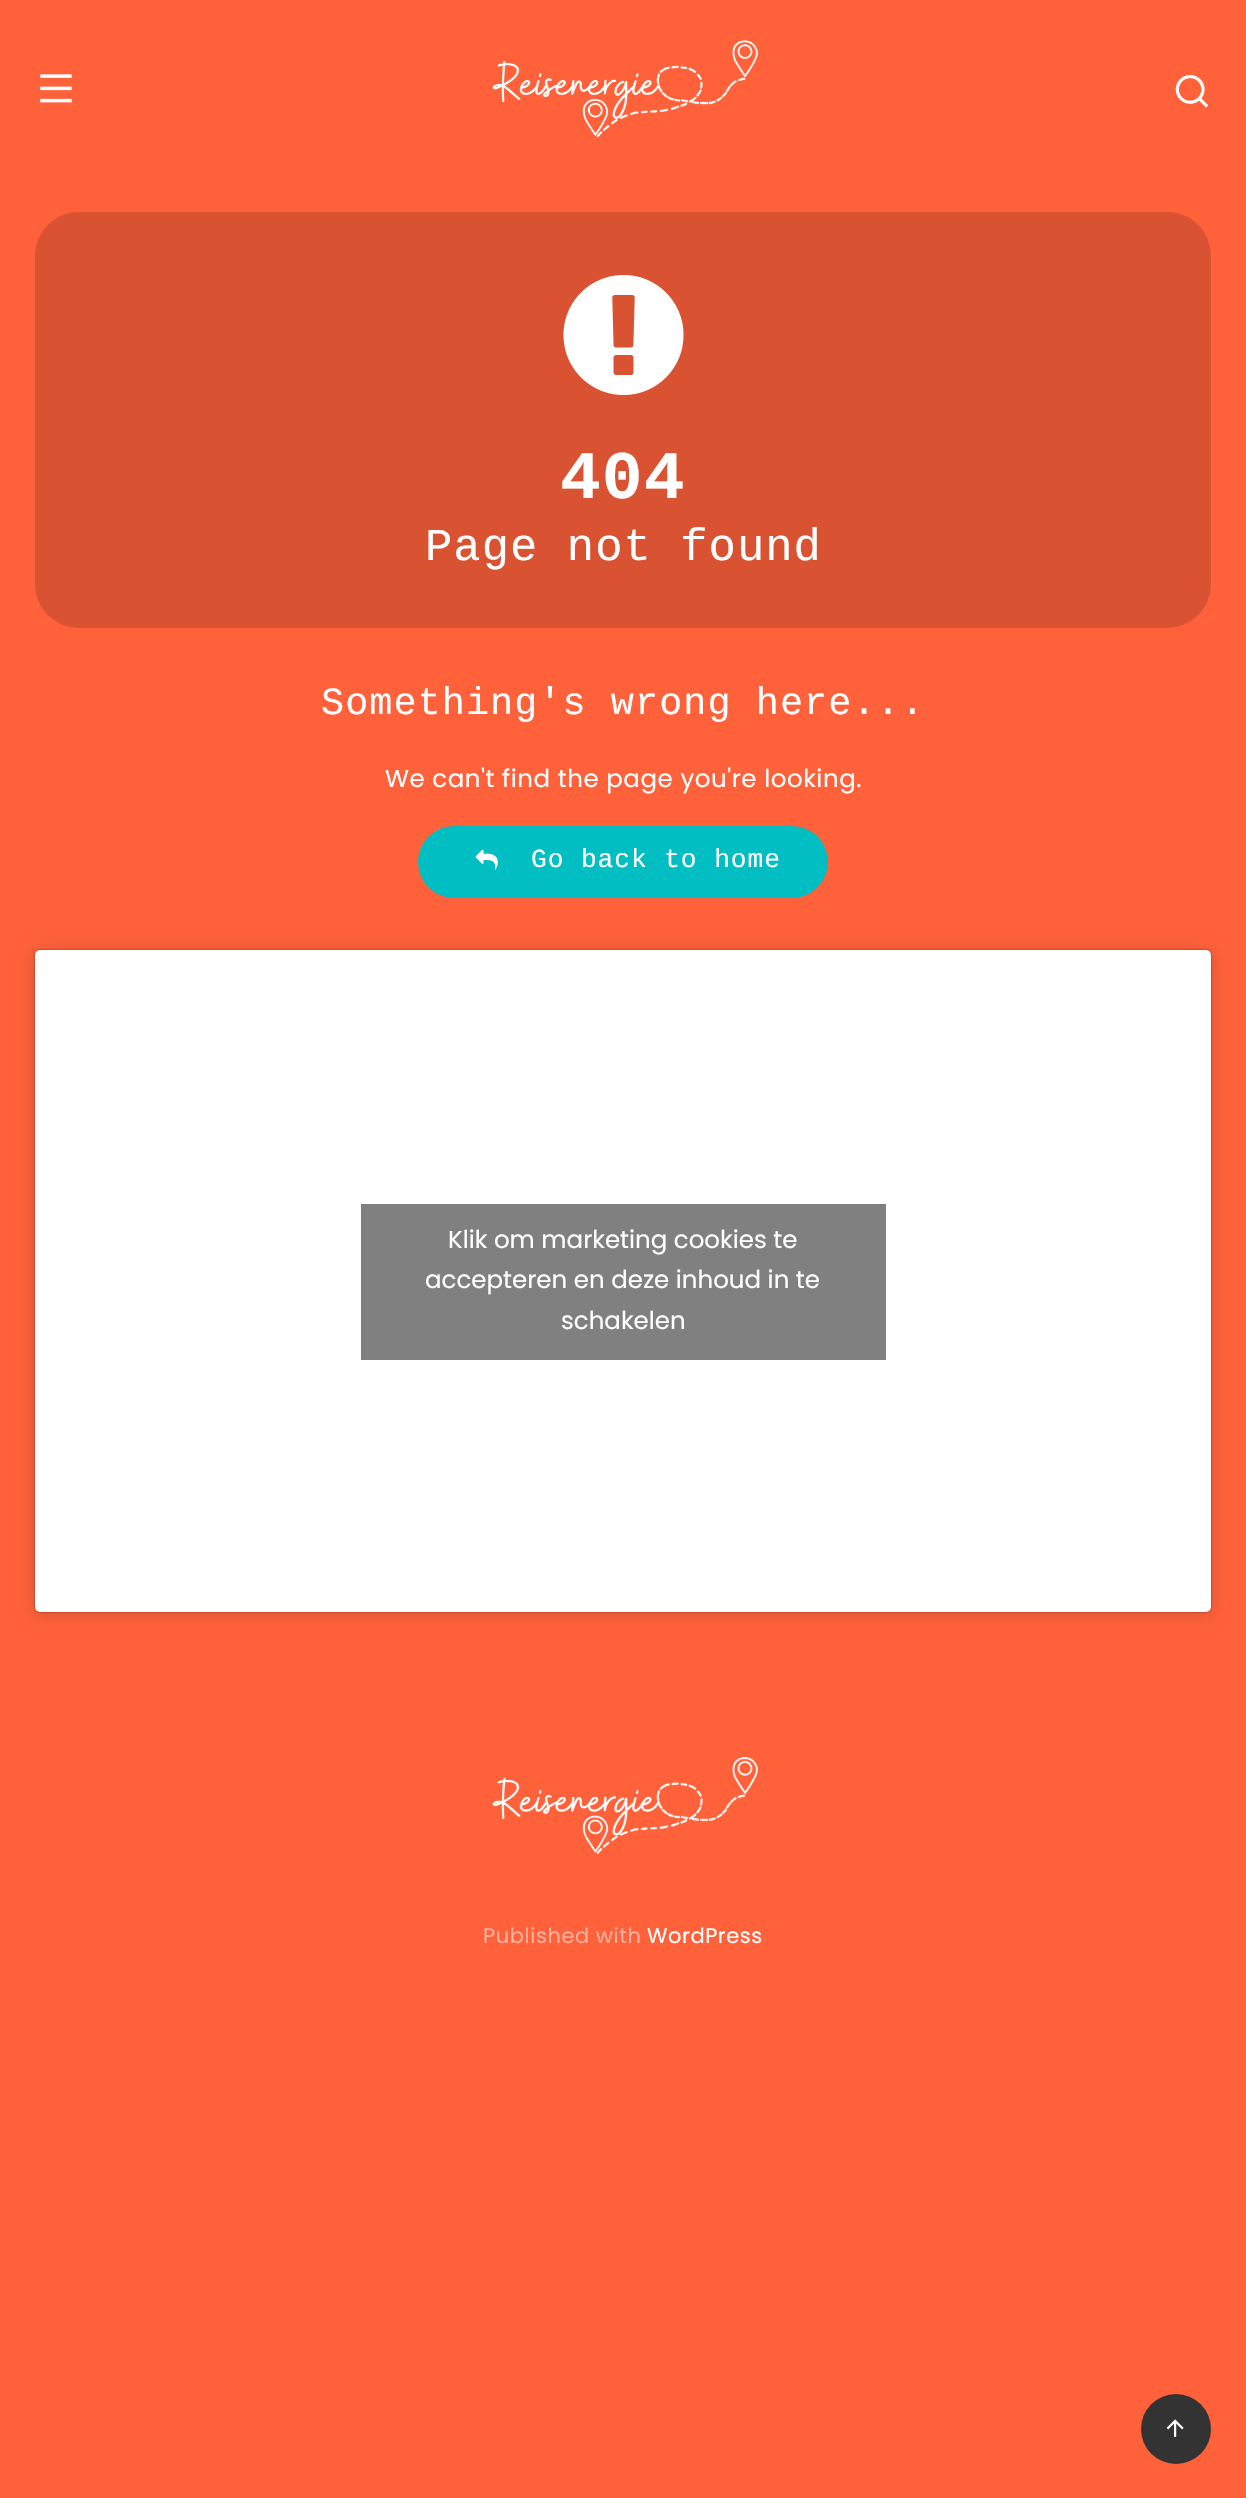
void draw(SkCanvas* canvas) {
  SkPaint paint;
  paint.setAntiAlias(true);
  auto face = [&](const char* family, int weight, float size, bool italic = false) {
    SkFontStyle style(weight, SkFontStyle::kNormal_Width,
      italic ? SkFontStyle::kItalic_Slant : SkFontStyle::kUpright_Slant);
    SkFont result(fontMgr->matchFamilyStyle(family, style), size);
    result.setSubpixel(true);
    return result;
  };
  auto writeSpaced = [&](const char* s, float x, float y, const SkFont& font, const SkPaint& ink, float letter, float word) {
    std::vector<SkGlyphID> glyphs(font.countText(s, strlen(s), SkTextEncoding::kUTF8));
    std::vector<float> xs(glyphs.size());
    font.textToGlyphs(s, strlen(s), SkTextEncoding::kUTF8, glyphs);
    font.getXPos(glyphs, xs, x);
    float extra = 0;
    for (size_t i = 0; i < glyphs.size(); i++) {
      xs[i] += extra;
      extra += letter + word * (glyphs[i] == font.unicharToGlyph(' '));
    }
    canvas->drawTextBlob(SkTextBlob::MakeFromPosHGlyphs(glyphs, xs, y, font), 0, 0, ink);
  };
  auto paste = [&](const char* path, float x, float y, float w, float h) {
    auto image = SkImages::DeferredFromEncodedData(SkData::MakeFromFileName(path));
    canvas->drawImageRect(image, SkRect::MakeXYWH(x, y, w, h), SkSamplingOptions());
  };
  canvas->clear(0xffff613a);
  paste("img/1.png", 40, 74, 32, 29);
  paste("img/2.png", 492, 40, 266, 98);
  paste("img/3.png", 1175, 75, 34, 33);
  paint.setColor(0xffd95231);
  canvas->drawRoundRect(SkRect::MakeXYWH(35, 212, 1176, 416), 44, 44, paint);
  paste("img/4.png", 563, 275, 121, 120);
  paint.setColor(0xff00bec1);
  canvas->drawRoundRect(SkRect::MakeXYWH(418, 826, 410, 72), 36, 36, paint);
  paste("img/5.png", 475, 849, 23, 21);
  paint.setColor(0x26000000);
  paint.setMaskFilter(SkMaskFilter::MakeBlur(kNormal_SkBlurStyle, 9));
  canvas->drawRoundRect(SkRect::MakeXYWH(35, 952, 1176, 662), 5, 5, paint);
  paint.setMaskFilter(nullptr);
  paint.setColor(0x80000000);
  paint.setMaskFilter(SkMaskFilter::MakeBlur(kNormal_SkBlurStyle, 1));
  canvas->drawRoundRect(SkRect::MakeXYWH(35, 950, 1176, 662), 5, 5, paint);
  paint.setMaskFilter(nullptr);
  paint.setColor(0xffffffff);
  canvas->drawRoundRect(SkRect::MakeXYWH(35, 950, 1176, 662), 5, 5, paint);
  paint.setColor(0xff808080);
  canvas->drawRect(SkRect::MakeXYWH(361, 1204, 525, 156), paint);
  paste("img/6.png", 492, 1756, 266, 99);
  paint.setColor(0xff333333);
  canvas->drawCircle(1176, 2429, 35, paint);
  paste("img/7.png", 1166, 2419, 18, 18);
  auto f0 = face("Liberation Mono", 700, 68);
  paint.setColor(0xffffffff);
  writeSpaced("404", 560, 498, f0, paint, 1.05f, 0);
  auto f1 = face("Liberation Mono", 400, 45.5f);
  writeSpaced("Page not found", 425, 560, f1, paint, 1.05f, 0);
  auto f2 = face("Liberation Mono", 400, 38.5f);
  writeSpaced("Something's wrong here...", 321, 714, f2, paint, 1.05f, 0);
  auto f3 = face("Poppins", 400, 24.5f);
  writeSpaced("We can't find the page you're looking.", 385, 787, f3, paint, 0.55f, 0);
  auto f4 = face("Liberation Mono", 400, 26.25f);
  writeSpaced("Go back to home", 531, 867, f4, paint, 0.9f, 0);
  {
    const struct { const char* s; float x, y; } items[] = {
      {"Klik om marketing cookies te", 448, 1248},
      {"accepteren en deze inhoud in te", 425, 1288},
      {"schakelen", 561, 1329},
    };
    for (auto [s, x, y] : items) {
      canvas->drawString(s, x, y, f3, paint);
    }
  }
  auto f5 = face("Poppins", 400, 21);
  paint.setColor(0xffffb09d);
  writeSpaced("Published with", 483, 1943, f5, paint, 0.55f, 0);
  paint.setColor(0xffffffff);
  writeSpaced("WordPress", 647, 1943, f5, paint, 0.55f, 0);
}
